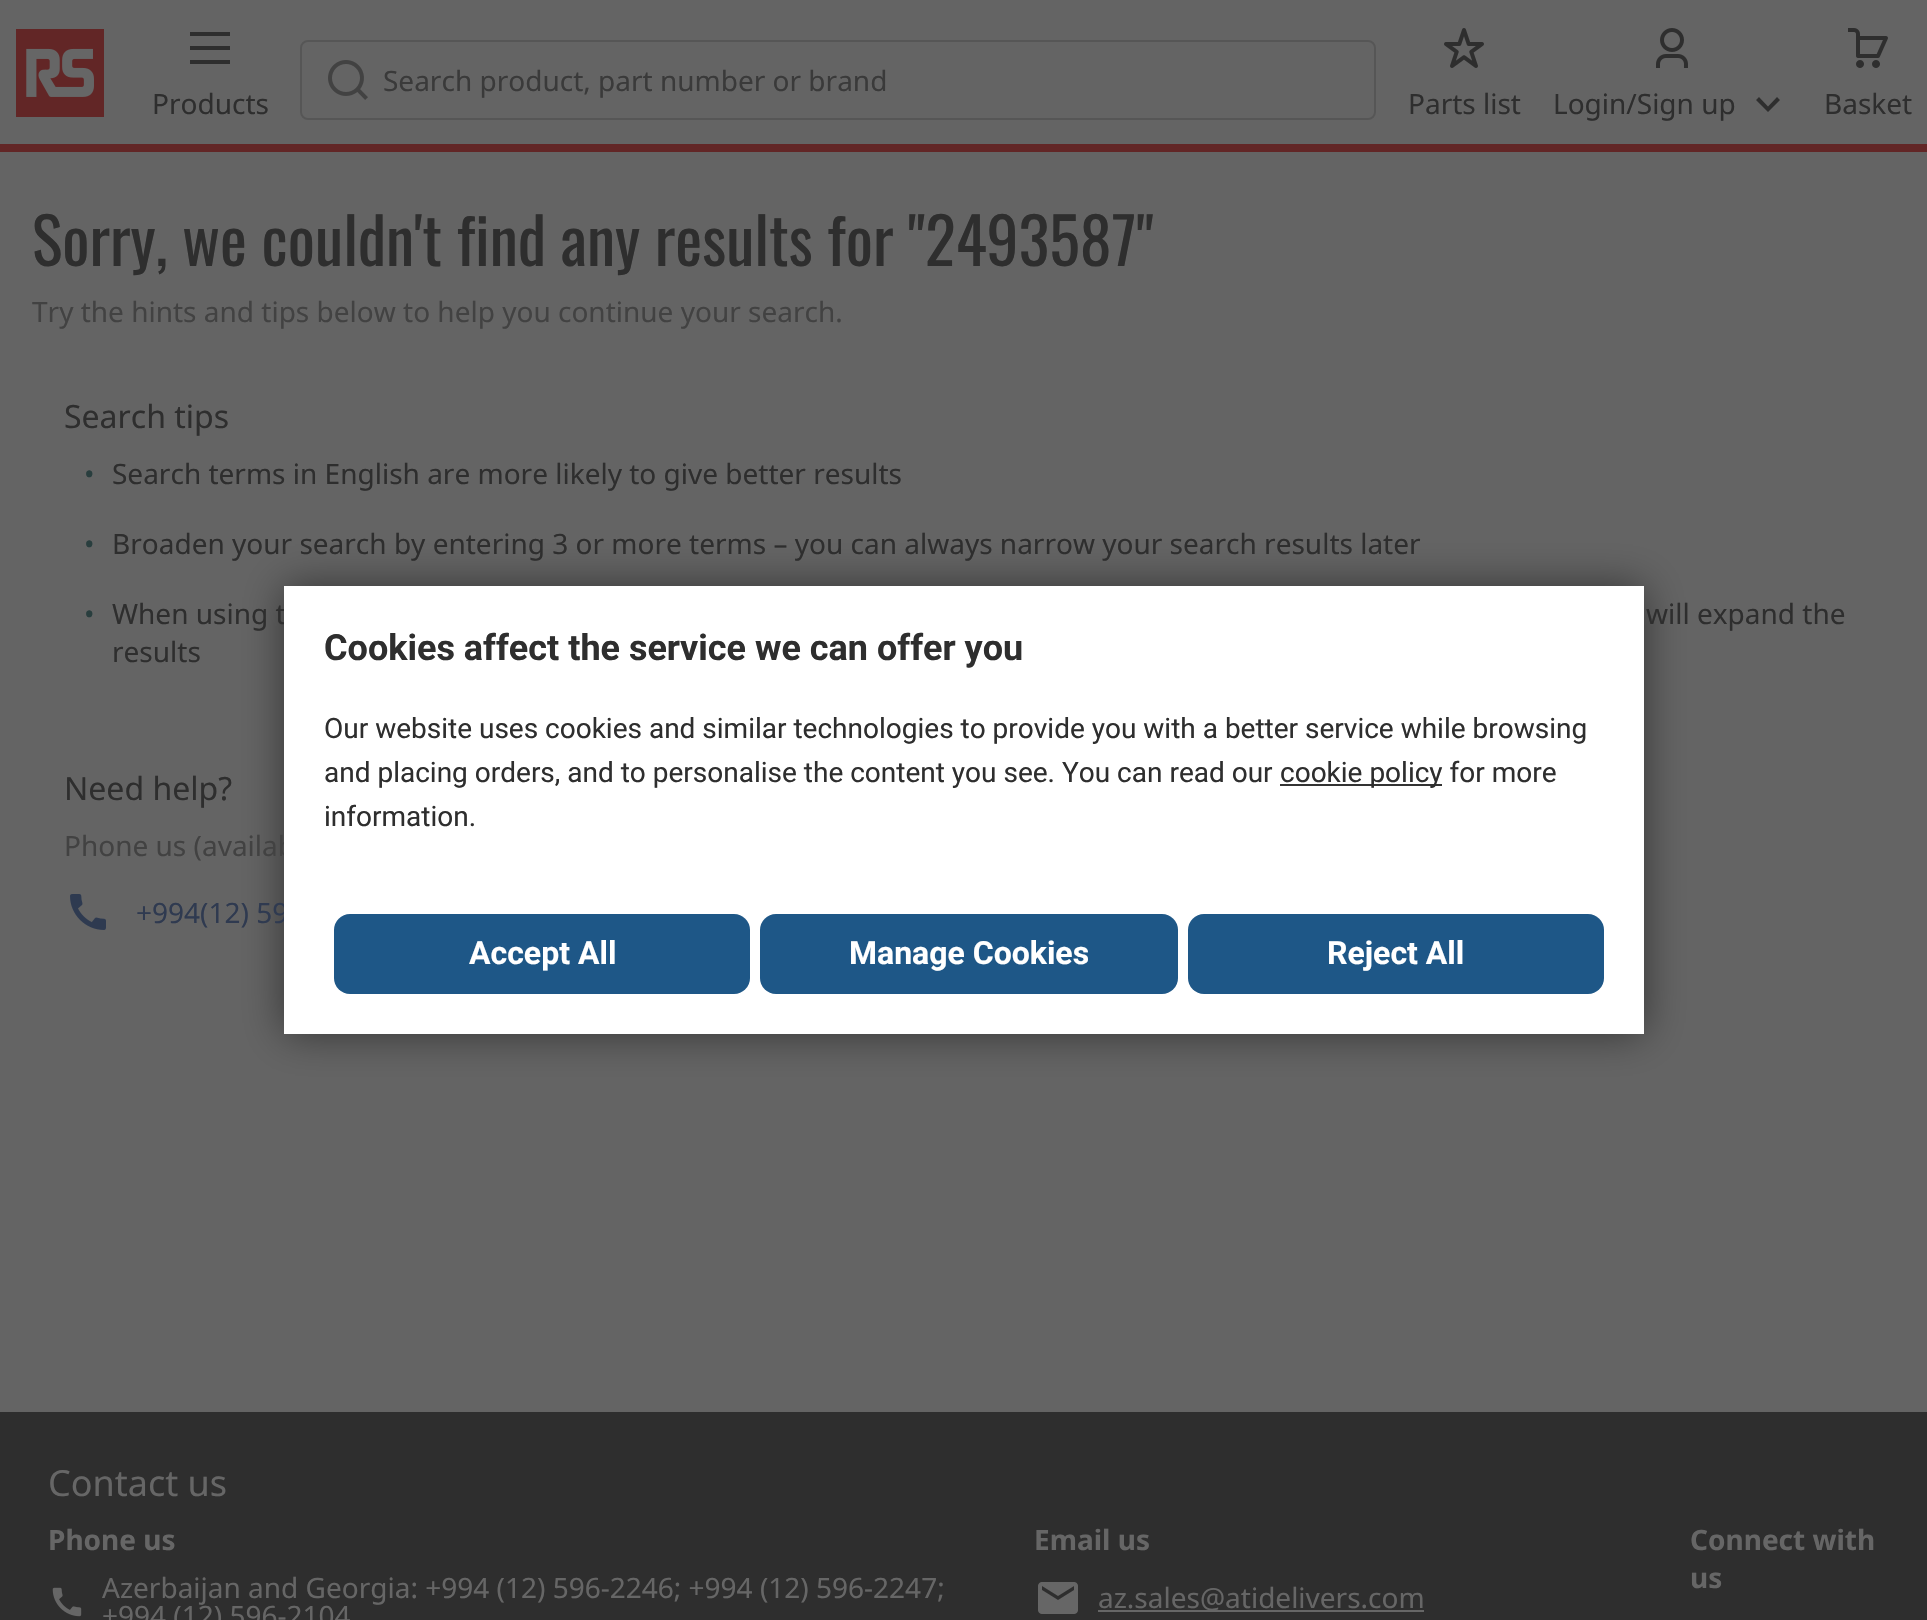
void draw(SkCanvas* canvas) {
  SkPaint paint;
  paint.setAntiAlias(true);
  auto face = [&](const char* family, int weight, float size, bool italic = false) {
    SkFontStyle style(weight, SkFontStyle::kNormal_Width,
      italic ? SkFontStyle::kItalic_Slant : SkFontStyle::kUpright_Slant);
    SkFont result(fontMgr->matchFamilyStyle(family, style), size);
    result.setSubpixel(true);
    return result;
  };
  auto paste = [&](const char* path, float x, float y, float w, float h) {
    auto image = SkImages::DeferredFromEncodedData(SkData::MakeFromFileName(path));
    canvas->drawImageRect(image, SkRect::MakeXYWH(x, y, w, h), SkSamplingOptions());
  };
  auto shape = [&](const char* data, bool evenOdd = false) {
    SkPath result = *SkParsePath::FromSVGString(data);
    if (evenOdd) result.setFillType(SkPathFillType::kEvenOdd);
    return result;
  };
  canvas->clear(0xff646464);
  paint.setColor(0xff622626);
  canvas->drawRect(SkRect::MakeXYWH(0, 144, 1927, 8), paint);
  paste("img/1.png", 16, 29, 88, 88);
  paint.setStroke(true);
  paint.setStrokeWidth(2);
  paint.setColor(0xff565656);
  canvas->drawRoundRect(SkRect::MakeXYWH(301, 41, 1074, 78), 7, 7, paint);
  paste("img/2.png", 328, 60, 40, 40);
  paint.setStroke(false);
  {
    const struct { float x, y, w, h; SkColor color; } items[] = {
      {190, 32, 40, 4, 0xff2e2e2e},
      {190, 46, 40, 4, 0xff2e2e2e},
      {190, 60, 40, 4, 0xff2e2e2e},
    };
    for (auto [x, y, w, h, color] : items) {
      paint.setColor(color);
      canvas->drawRect(SkRect::MakeXYWH(x, y, w, h), paint);
    }
  }
  paste("img/3.png", 1444, 28, 40, 40);
  paste("img/4.png", 1656, 28, 32, 40);
  canvas->drawPath(shape("M1777 97L1768 106.5L1759 97L1756 100L1768 112L1780 100Z"), paint);
  paste("img/5.png", 1848, 28, 40, 40);
  paste("img/6.png", 70, 894, 36, 36);
  canvas->drawRect(SkRect::MakeXYWH(0, 1412, 1927, 208), paint);
  paste("img/7.png", 52, 1587, 30, 30);
  paste("img/8.png", 1038, 1582, 40, 32);
  paint.setColor(0xff666666);
  canvas->drawRect(SkRect::MakeXYWH(1098, 1610, 326, 2), paint);
  paint.setColor(0xff333333);
  paint.setMaskFilter(SkMaskFilter::MakeBlur(kNormal_SkBlurStyle, 20));
  canvas->drawRect(SkRect::MakeXYWH(284, 586, 1360, 448), paint);
  paint.setMaskFilter(nullptr);
  auto f0 = face("Noto Sans", 400, 28);
  paint.setColor(0xff3a3a3a);
  canvas->drawString("Search product, part number or brand", 383, 91, f0, paint);
  paint.setColor(0xff2e2e2e);
  {
    const struct { const char* s; float x, y; } items[] = {
      {"Products", 152, 114},
      {"Parts list", 1408, 114},
      {"Login/Sign up", 1553, 114},
      {"Basket", 1824, 114},
    };
    for (auto [s, x, y] : items) {
      canvas->drawString(s, x, y, f0, paint);
    }
  }
  auto f1 = face("Oswald", 400, 64);
  canvas->drawString("Sorry, we couldn't find any results for \"2493587\"", 32, 266, f1, paint);
  paint.setColor(0xff424242);
  canvas->drawString("Try the hints and tips below to help you continue your search.", 32, 322, f0, paint);
  auto f2 = face("Noto Sans", 400, 32);
  paint.setColor(0xff2e2e2e);
  canvas->drawString("Search tips", 64, 428, f2, paint);
  paint.setColor(0xff293e3e);
  canvas->drawString("•", 84, 484, f0, paint);
  paint.setColor(0xff2e2e2e);
  canvas->drawString("Search terms in English are more likely to give better results", 112, 484, f0, paint);
  paint.setColor(0xff293e3e);
  canvas->drawString("•", 84, 554, f0, paint);
  paint.setColor(0xff2e2e2e);
  canvas->drawString("Broaden your search by entering 3 or more terms – you can always narrow your search results later", 112, 554, f0, paint);
  paint.setColor(0xff293e3e);
  canvas->drawString("•", 84, 624, f0, paint);
  paint.setColor(0xff2e2e2e);
  {
    const struct { const char* s; float x, y; } items[] = {
      {"When using t", 112, 624},
      {"will expand the", 1646, 624},
      {"results", 112, 662},
    };
    for (auto [s, x, y] : items) {
      canvas->drawString(s, x, y, f0, paint);
    }
  }
  canvas->drawString("Need help?", 64, 800, f2, paint);
  paint.setColor(0xff424242);
  canvas->drawString("Phone us (availab", 64, 856, f0, paint);
  paint.setColor(0xff2f3a50);
  canvas->drawString("+994(12) 59", 136, 923, f0, paint);
  auto f3 = face("Noto Sans", 400, 36);
  paint.setColor(0xff666666);
  canvas->drawString("Contact us", 48, 1496, f3, paint);
  auto f4 = face("Noto Sans", 700, 28);
  canvas->drawString("Phone us", 48, 1550, f4, paint);
  canvas->drawString("Azerbaijan and Georgia: +994 (12) 596-2246; +994 (12) 596-2247;", 102, 1598, f0, paint);
  canvas->drawString("+994 (12) 596-2104", 102, 1626, f0, paint);
  canvas->drawString("Email us", 1034, 1550, f4, paint);
  canvas->drawString("az.sales@atidelivers.com", 1098, 1608, f0, paint);
  canvas->drawString("Connect with", 1690, 1550, f4, paint);
  canvas->drawString("us", 1690, 1588, f4, paint);
  paint.setColor(0xffffffff);
  canvas->drawRect(SkRect::MakeXYWH(284, 586, 1360, 448), paint);
  auto f5 = face("Roboto", 700, 36);
  paint.setColor(0xff2e2e2e);
  canvas->drawString("Cookies affect the service we can offer you", 324, 660, f5, paint);
  auto f6 = face("Roboto", 400, 28);
  canvas->drawString("Our website uses cookies and similar technologies to provide you with a better service while browsing", 324, 738, f6, paint);
  canvas->drawString("and placing orders, and to personalise the content you see. You can read our", 324, 782, f6, paint);
  paint.setColor(0xff333333);
  canvas->drawRect(SkRect::MakeXYWH(1280, 784, 162, 2), paint);
  paint.setColor(0xff2e2e2e);
  canvas->drawString("cookie policy for more", 1280, 782, f6, paint);
  canvas->drawString("information.", 324, 826, f6, paint);
  paint.setColor(0xff1e5787);
  canvas->drawRoundRect(SkRect::MakeXYWH(334, 914, 416, 80), 16, 16, paint);
  auto f7 = face("Roboto", 700, 32);
  paint.setColor(0xffffffff);
  canvas->drawString("Accept All", 469, 964, f7, paint);
  paint.setColor(0xff1e5787);
  canvas->drawRoundRect(SkRect::MakeXYWH(760, 914, 418, 80), 16, 16, paint);
  paint.setColor(0xffffffff);
  canvas->drawString("Manage Cookies", 849, 964, f7, paint);
  paint.setColor(0xff1e5787);
  canvas->drawRoundRect(SkRect::MakeXYWH(1188, 914, 416, 80), 16, 16, paint);
  paint.setColor(0xffffffff);
  canvas->drawString("Reject All", 1327, 964, f7, paint);
}
